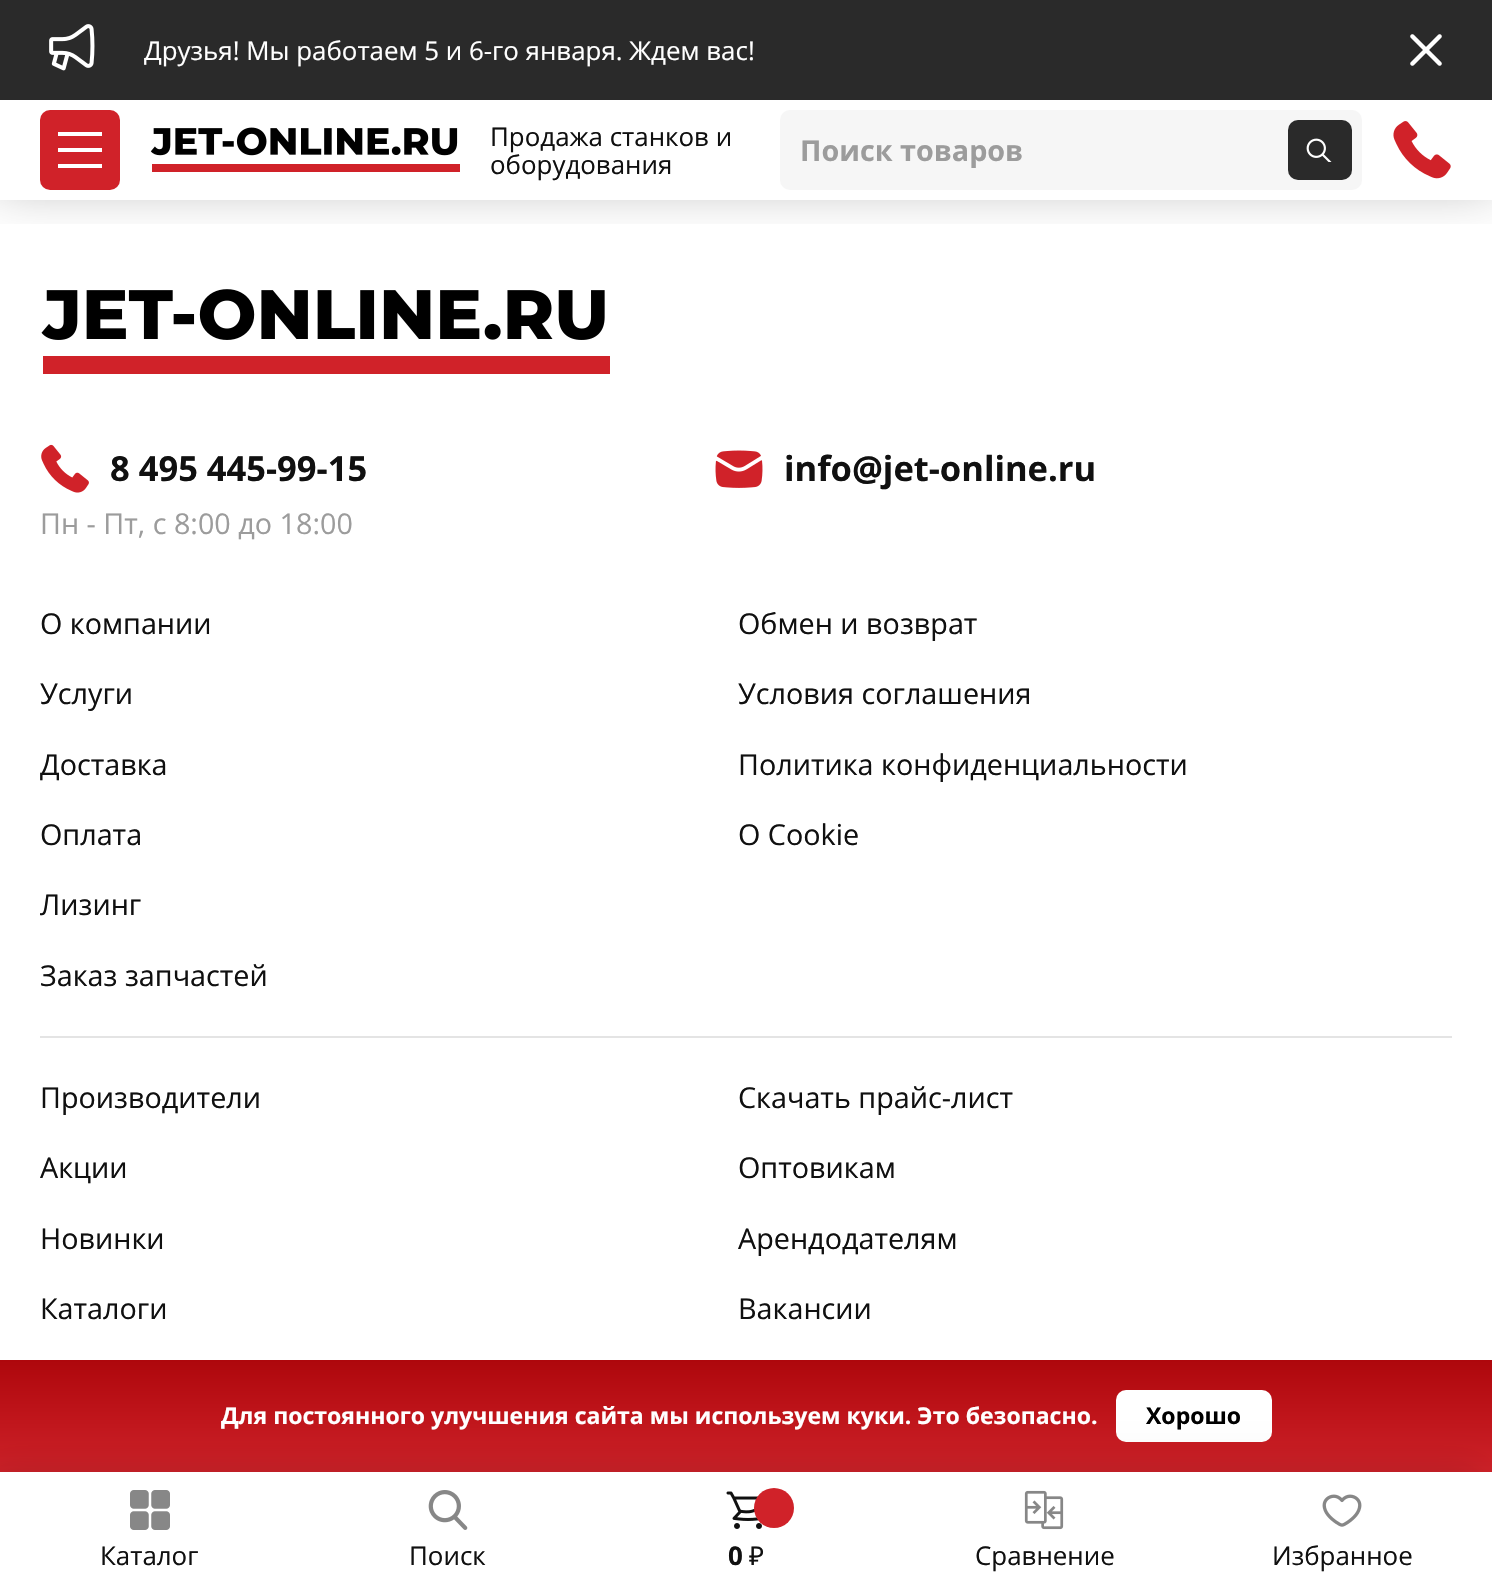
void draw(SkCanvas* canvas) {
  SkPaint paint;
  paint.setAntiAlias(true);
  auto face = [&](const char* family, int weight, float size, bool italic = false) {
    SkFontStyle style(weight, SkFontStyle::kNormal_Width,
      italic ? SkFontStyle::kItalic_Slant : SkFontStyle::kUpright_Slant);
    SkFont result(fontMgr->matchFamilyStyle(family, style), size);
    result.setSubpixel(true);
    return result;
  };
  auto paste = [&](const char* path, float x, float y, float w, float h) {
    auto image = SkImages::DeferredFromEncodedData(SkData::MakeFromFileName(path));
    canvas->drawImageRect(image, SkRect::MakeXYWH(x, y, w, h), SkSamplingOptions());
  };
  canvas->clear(0xffffffff);
  canvas->save();
  canvas->clipRect(SkRect::MakeXYWH(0, 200, 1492, 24));
  paint.setColor(0x4d000000);
  paint.setMaskFilter(SkMaskFilter::MakeBlur(kNormal_SkBlurStyle, 25));
  canvas->drawRect(SkRect::MakeXYWH(-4, -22, 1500, 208), paint);
  paint.setMaskFilter(nullptr);
  canvas->restore();
  paint.setColor(0xff2a2a2a);
  canvas->drawRect(SkRect::MakeXYWH(0, 0, 1492, 100), paint);
  paste("img/1.png", 49, 24, 46, 47);
  paste("img/2.png", 1410, 34, 32, 32);
  paint.setColor(0xffd02229);
  canvas->drawRoundRect(SkRect::MakeXYWH(40, 110, 80, 80), 10, 10, paint);
  {
    const struct { float x, y, w, h; SkColor color; } items[] = {
      {58, 132, 44, 4, 0xffffffff},
      {58, 148, 44, 4, 0xffffffff},
      {58, 164, 44, 4, 0xffffffff},
    };
    for (auto [x, y, w, h, color] : items) {
      paint.setColor(color);
      canvas->drawRect(SkRect::MakeXYWH(x, y, w, h), paint);
    }
  }
  paste("img/3.png", 150, 127, 310, 45);
  paint.setColor(0xfff6f6f6);
  canvas->drawRoundRect(SkRect::MakeXYWH(780, 110, 582, 80), 10, 10, paint);
  paint.setColor(0xff2a2a2a);
  canvas->drawRoundRect(SkRect::MakeXYWH(1288, 120, 64, 60), 10, 10, paint);
  paste("img/4.png", 1306, 138, 26, 24);
  paste("img/5.png", 1393, 121, 58, 58);
  paste("img/6.png", 41, 289, 569, 85);
  paste("img/7.png", 41, 444, 48, 49);
  paste("img/8.png", 715, 450, 48, 38);
  paint.setColor(0xffe4e4e4);
  canvas->drawRect(SkRect::MakeXYWH(40, 1036, 1412, 2), paint);
  {
    const SkColor colors[] = {0xffd02229, 0xffae070c};
    const float stops[] = {0, 1};
    const SkPoint ends[] = {{746, 1472}, {746, 1360}};
    paint.setShader(SkGradientShader::MakeLinear(ends, colors, stops, 2, SkTileMode::kClamp));
    paint.setAlpha(255);
  }
  canvas->drawRect(SkRect::MakeXYWH(0, 1360, 1492, 112), paint);
  paint.setShader(nullptr);
  paint.setColor(0xffffffff);
  canvas->drawRoundRect(SkRect::MakeXYWH(1116, 1390, 156, 52), 10, 10, paint);
  paint.setColor(0x26000000);
  paint.setMaskFilter(SkMaskFilter::MakeBlur(kNormal_SkBlurStyle, 20));
  canvas->drawRect(SkRect::MakeXYWH(-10, 1470, 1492, 120), paint);
  paint.setMaskFilter(nullptr);
  paint.setColor(0xffffffff);
  canvas->drawRect(SkRect::MakeXYWH(0, 1472, 1492, 119), paint);
  paste("img/9.png", 130, 1490, 40, 40);
  paste("img/10.png", 428, 1490, 40, 40);
  paste("img/11.png", 726, 1491, 36, 38);
  paint.setColor(0xffd02229);
  canvas->drawCircle(774, 1508, 20, paint);
  paste("img/12.png", 1024, 1490, 40, 40);
  paste("img/13.png", 1322, 1494, 40, 33);
  auto f0 = face("Open Sans", 400, 25.9f);
  paint.setColor(0xffffffff);
  canvas->drawString("Друзья! Мы работаем 5 и 6-го января. Ждем вас!", 144, 60, f0, paint);
  paint.setColor(0xff101010);
  canvas->drawString("Продажа станков и", 490, 146, f0, paint);
  canvas->drawString("оборудования", 490, 174, f0, paint);
  auto f1 = face("Open Sans", 700, 28.75f);
  paint.setColor(0xff9c9c9c);
  canvas->drawString("Поиск товаров", 800, 161, f1, paint);
  auto f2 = face("Open Sans", 700, 34.5f);
  paint.setColor(0xff101010);
  canvas->drawString("8 495 445-99-15", 110, 481, f2, paint);
  canvas->drawString("info@jet-online.ru", 784, 481, f2, paint);
  auto f3 = face("Open Sans", 400, 28.75f);
  paint.setColor(0xff9c9c9c);
  canvas->drawString("Пн - Пт, с 8:00 до 18:00", 40, 534, f3, paint);
  paint.setColor(0xff101010);
  {
    const struct { const char* s; float x, y; } items[] = {
      {"О компании", 40, 634},
      {"Услуги", 40, 704},
      {"Доставка", 40, 775},
      {"Оплата", 40, 845},
      {"Лизинг", 40, 915},
      {"Заказ запчастей", 40, 986},
      {"Обмен и возврат", 738, 634},
      {"Условия соглашения", 738, 704},
      {"Политика конфиденциальности", 738, 775},
      {"О Cookie", 738, 845},
      {"Производители", 40, 1108},
      {"Акции", 40, 1178},
      {"Новинки", 40, 1249},
      {"Каталоги", 40, 1319},
      {"Скачать прайс-лист", 738, 1108},
      {"Оптовикам", 738, 1178},
      {"Арендодателям", 738, 1249},
      {"Вакансии", 738, 1319},
    };
    for (auto [s, x, y] : items) {
      canvas->drawString(s, x, y, f3, paint);
    }
  }
  auto f4 = face("Open Sans", 700, 23.05f);
  paint.setColor(0xffffffff);
  canvas->drawString("Для постоянного улучшения сайта мы используем куки. Это безопасно.", 221, 1424, f4, paint);
  paint.setColor(0xff000000);
  canvas->drawString("Хорошо", 1146, 1424, f4, paint);
  paint.setColor(0xff101010);
  canvas->drawString("Каталог", 100, 1565, f0, paint);
  canvas->drawString("Поиск", 409, 1565, f0, paint);
  auto f5 = face("Open Sans", 700, 25.9f);
  canvas->drawString("0", 728, 1565, f5, paint);
  auto f6 = face("Noto Sans", 400, 25.9f);
  canvas->drawString("₽", 749, 1565, f6, paint);
  canvas->drawString("Сравнение", 975, 1565, f0, paint);
  canvas->drawString("Избранное", 1272, 1565, f0, paint);
}
